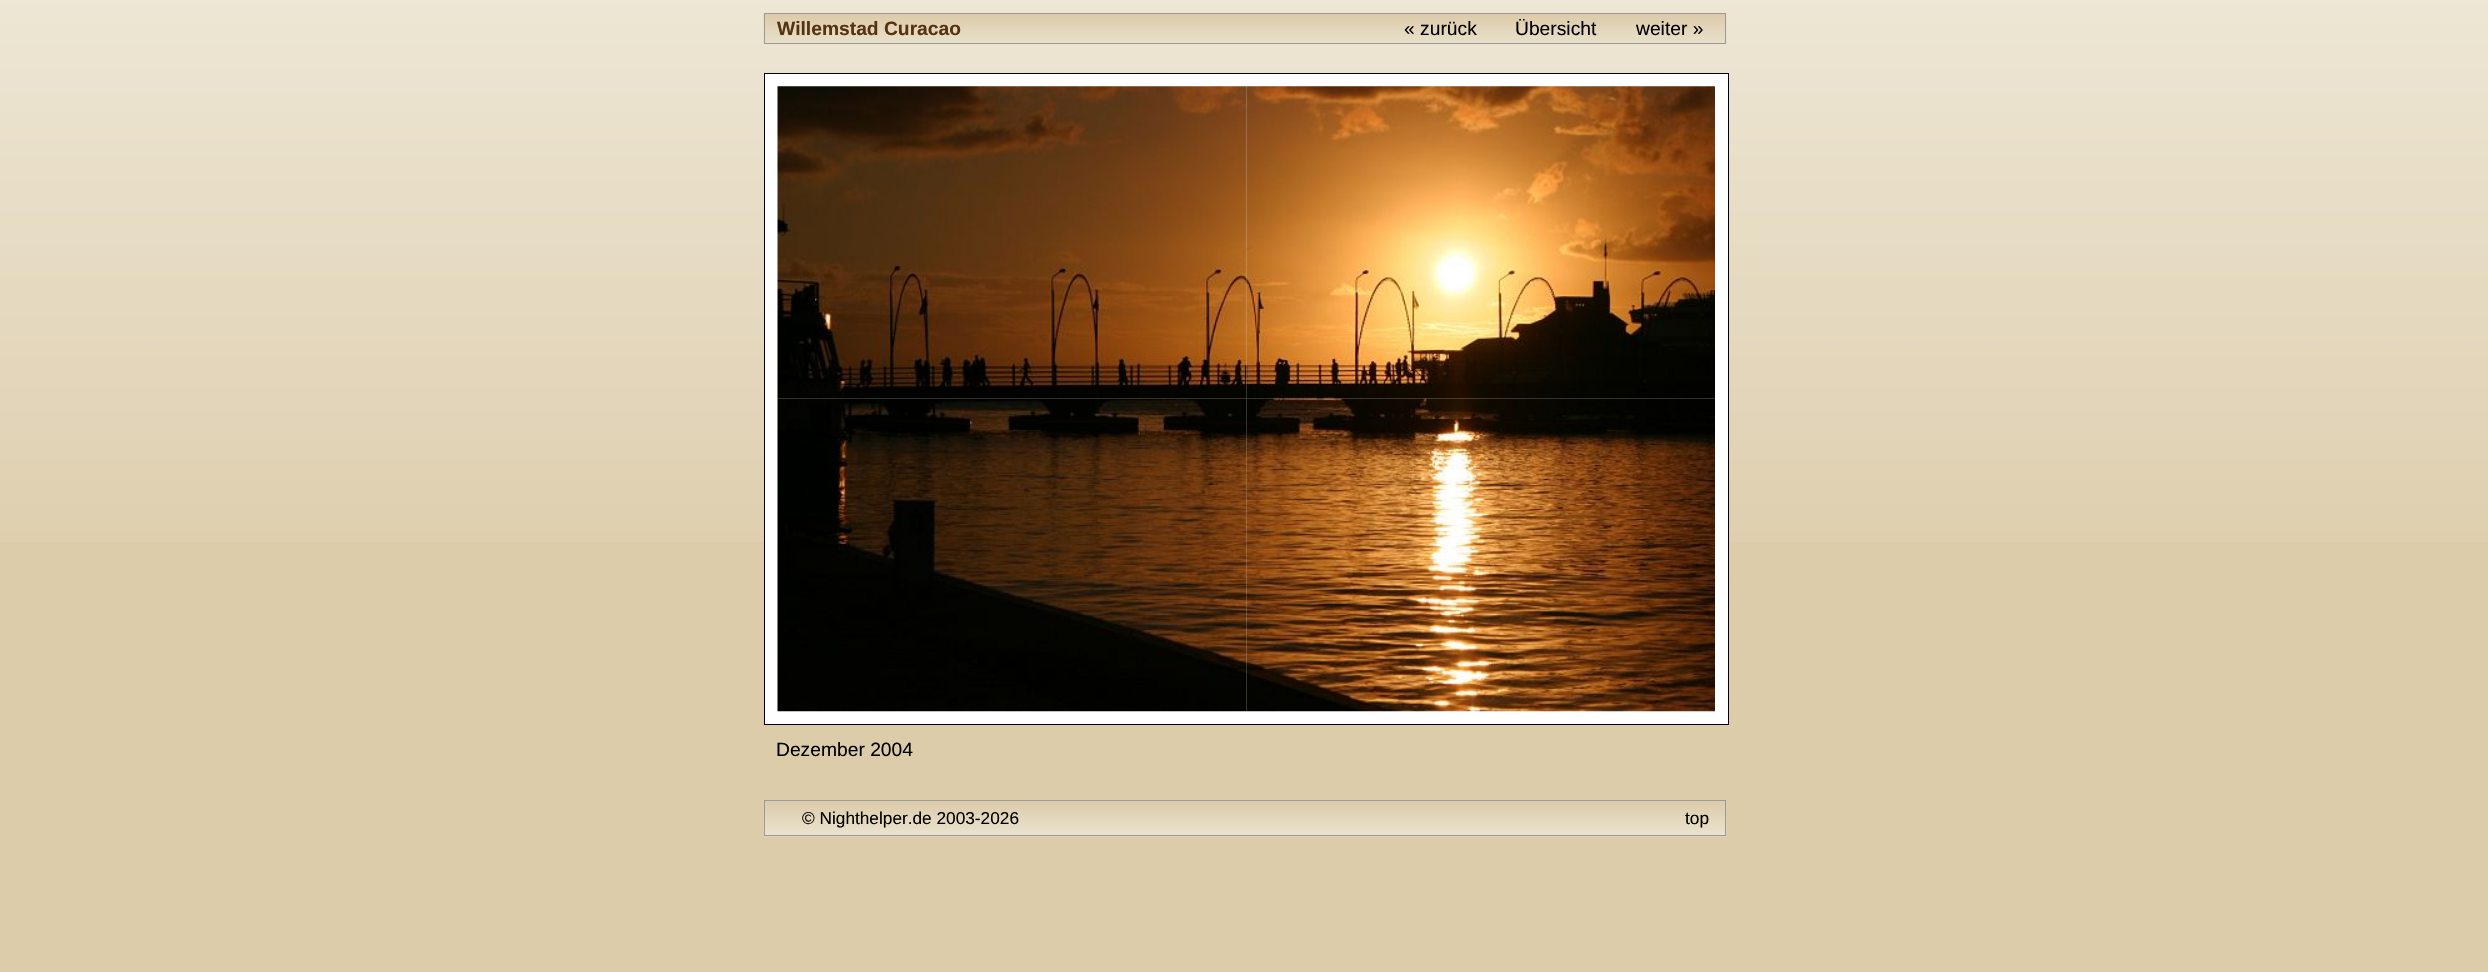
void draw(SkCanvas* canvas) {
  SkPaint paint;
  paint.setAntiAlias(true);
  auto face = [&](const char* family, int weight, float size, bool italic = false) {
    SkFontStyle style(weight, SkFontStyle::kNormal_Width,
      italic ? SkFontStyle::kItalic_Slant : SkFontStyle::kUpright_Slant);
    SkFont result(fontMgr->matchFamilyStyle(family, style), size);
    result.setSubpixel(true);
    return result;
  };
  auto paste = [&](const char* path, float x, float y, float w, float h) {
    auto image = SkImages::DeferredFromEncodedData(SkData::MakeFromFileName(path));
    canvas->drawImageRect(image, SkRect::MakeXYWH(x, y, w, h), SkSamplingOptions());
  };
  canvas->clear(0xffdcccaa);
  paste("img/1.png", 0, 0, 2488, 13);
  paste("img/2.png", 0, 13, 2488, 529);
  paste("img/3.png", 763, 13, 964, 31);
  paint.setStroke(true);
  paint.setStrokeWidth(1);
  paint.setColor(0xff999999);
  canvas->drawRect(SkRect::MakeXYWH(764.5f, 13.5f, 961, 30), paint);
  paint.setStroke(false);
  paint.setColor(0xffffffff);
  canvas->drawRect(SkRect::MakeXYWH(764.5f, 73.5f, 964, 651), paint);
  paint.setStroke(true);
  paint.setColor(0xff000000);
  canvas->drawRect(SkRect::MakeXYWH(764.5f, 73.5f, 964, 651), paint);
  paste("img/4.png", 777, 86, 470, 313);
  paste("img/5.png", 1246, 86, 469, 313);
  paste("img/6.png", 777, 398, 470, 314);
  paste("img/7.png", 1246, 398, 469, 314);
  paste("img/8.png", 763, 801, 964, 36);
  paint.setColor(0xff999999);
  canvas->drawRect(SkRect::MakeXYWH(764.5f, 800.5f, 961, 35), paint);
  auto f0 = face("Liberation Sans", 700, 19.25f);
  paint.setStroke(false);
  paint.setColor(0xff553311);
  canvas->drawString("Willemstad Curacao", 777, 35, f0, paint);
  auto f1 = face("Liberation Sans", 400, 19.25f);
  paint.setColor(0xff000000);
  {
    const struct { const char* s; float x, y; } items[] = {
      {"« zurück", 1404, 35},
      {"Übersicht", 1515, 35},
      {"weiter »", 1636, 35},
      {"Dezember 2004", 776, 756},
    };
    for (auto [s, x, y] : items) {
      canvas->drawString(s, x, y, f1, paint);
    }
  }
  auto f2 = face("Liberation Sans", 400, 17.25f);
  canvas->drawString("© Nighthelper.de 2003-2026", 802, 824, f2, paint);
  canvas->drawString("top", 1685, 824, f2, paint);
}
